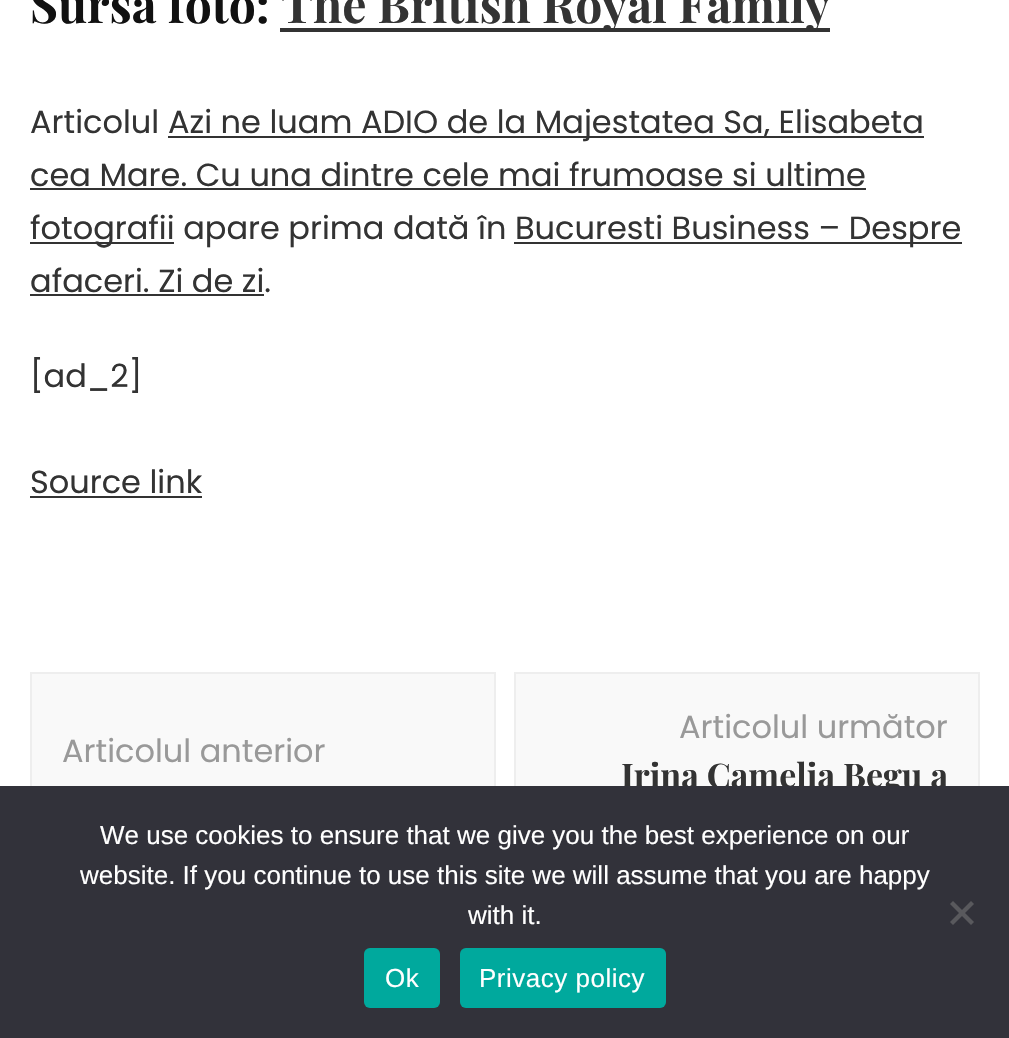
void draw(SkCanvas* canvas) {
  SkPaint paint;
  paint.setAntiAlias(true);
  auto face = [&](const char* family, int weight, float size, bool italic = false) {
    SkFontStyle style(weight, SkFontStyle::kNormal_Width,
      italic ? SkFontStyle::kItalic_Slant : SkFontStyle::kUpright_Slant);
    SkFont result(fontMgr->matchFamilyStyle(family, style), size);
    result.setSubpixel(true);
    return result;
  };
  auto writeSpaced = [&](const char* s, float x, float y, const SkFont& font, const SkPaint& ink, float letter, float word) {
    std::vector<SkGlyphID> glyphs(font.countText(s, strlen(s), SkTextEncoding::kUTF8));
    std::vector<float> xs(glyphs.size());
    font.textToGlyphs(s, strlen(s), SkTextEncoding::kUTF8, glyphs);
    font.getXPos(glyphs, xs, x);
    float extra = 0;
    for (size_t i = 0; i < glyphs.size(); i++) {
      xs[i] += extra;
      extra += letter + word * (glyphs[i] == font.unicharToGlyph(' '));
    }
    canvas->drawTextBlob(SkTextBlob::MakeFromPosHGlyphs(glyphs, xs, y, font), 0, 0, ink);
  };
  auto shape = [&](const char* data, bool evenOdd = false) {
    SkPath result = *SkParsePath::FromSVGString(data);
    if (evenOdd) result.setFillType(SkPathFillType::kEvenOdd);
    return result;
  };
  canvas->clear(0xffffffff);
  {
    const struct { float x, y, w, h; SkColor color; } items[] = {
      {280, 28, 550, 4, 0xff333333},
      {168, 136, 756, 2, 0xff333333},
      {30, 188, 836, 2, 0xff333333},
      {30, 242, 144, 2, 0xff333333},
      {514, 242, 448, 2, 0xff333333},
      {30, 294, 234, 2, 0xff333333},
      {30, 496, 172, 2, 0xff333333},
      {32, 674, 462, 112, 0xfff9f9f9},
    };
    for (auto [x, y, w, h, color] : items) {
      paint.setColor(color);
      canvas->drawRect(SkRect::MakeXYWH(x, y, w, h), paint);
    }
  }
  paint.setStroke(true);
  paint.setStrokeWidth(2);
  paint.setColor(0xffeeeeee);
  canvas->drawRect(SkRect::MakeXYWH(31, 673, 464, 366), paint);
  paint.setStroke(false);
  paint.setColor(0xfff9f9f9);
  canvas->drawRect(SkRect::MakeXYWH(516, 674, 462, 112), paint);
  paint.setStroke(true);
  paint.setColor(0xffeeeeee);
  canvas->drawRect(SkRect::MakeXYWH(515, 673, 464, 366), paint);
  auto f0 = face("Playfair Display", 700, 48);
  paint.setStroke(false);
  paint.setColor(0xff111111);
  canvas->drawString("Sursa foto:", 30, 23, f0, paint);
  paint.setColor(0xff333333);
  canvas->drawString("The British Royal Family", 281, 23, f0, paint);
  auto f1 = face("Poppins", 400, 32);
  {
    const struct { const char* s; float x, y; } items[] = {
      {"Articolul", 30, 133},
      {"Azi ne luam ADIO de la Majestatea Sa, Elisabeta", 168, 133},
      {"cea Mare. Cu una dintre cele mai frumoase si ultime", 30, 186},
      {"fotografii apare prima dată în", 30, 239},
      {"Bucuresti Business – Despre", 515, 239},
      {"afaceri. Zi de zi.", 30, 292},
      {"[ad_2]", 30, 387},
      {"Source link", 30, 493},
    };
    for (auto [s, x, y] : items) {
      canvas->drawString(s, x, y, f1, paint);
    }
  }
  paint.setColor(0xff999999);
  canvas->drawString("Articolul anterior", 62, 762, f1, paint);
  canvas->drawString("Articolul următor", 679, 738, f1, paint);
  auto f2 = face("Playfair Display", 700, 34);
  paint.setColor(0xff333333);
  canvas->drawString("Irina Camelia Begu a", 621, 788, f2, paint);
  paint.setColor(0xff32323a);
  canvas->drawRect(SkRect::MakeXYWH(0, 786, 1009, 252), paint);
  auto f3 = face("Liberation Sans", 400, 26);
  paint.setColor(0xffffffff);
  {
    const struct { const char* s; float x, y; } items[] = {
      {"We use cookies to ensure that we give you the best experience on our", 100, 844},
      {"website. If you continue to use this site we will assume that you are happy", 80, 884},
      {"with it.", 468, 924},
    };
    for (auto [s, x, y] : items) {
      canvas->drawString(s, x, y, f3, paint);
    }
  }
  paint.setColor(0xff59595d);
  canvas->drawPath(shape("M971 901L974 904L953 925L950 922Z"), paint);
  canvas->drawPath(shape("M950 904L953 901L974 922L971 925Z"), paint);
  paint.setColor(0xff00a99d);
  canvas->drawRoundRect(SkRect::MakeXYWH(364, 948, 76, 60), 6, 6, paint);
  paint.setColor(0xffffffff);
  writeSpaced("Ok", 385, 987, f3, paint, 0.5f, 0);
  paint.setColor(0xff00a99d);
  canvas->drawRoundRect(SkRect::MakeXYWH(460, 948, 206, 60), 6, 6, paint);
  paint.setColor(0xffffffff);
  writeSpaced("Privacy policy", 479, 987, f3, paint, 0.5f, 0);
}
